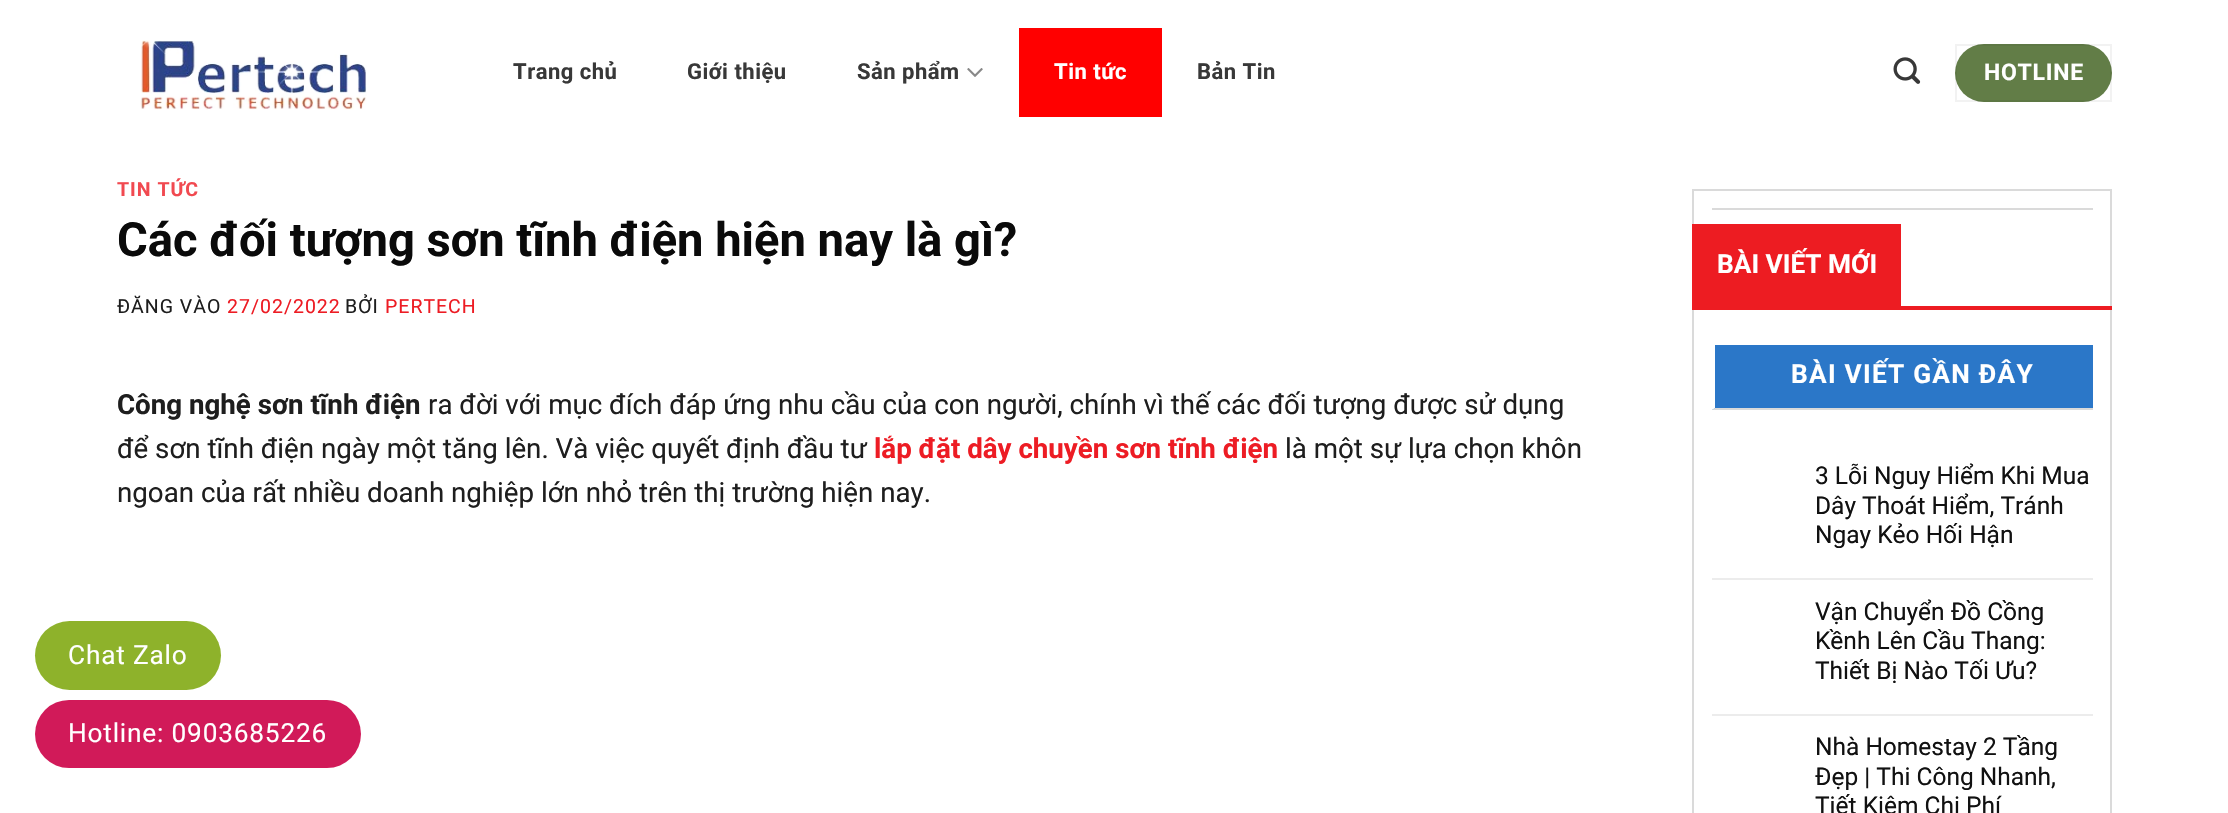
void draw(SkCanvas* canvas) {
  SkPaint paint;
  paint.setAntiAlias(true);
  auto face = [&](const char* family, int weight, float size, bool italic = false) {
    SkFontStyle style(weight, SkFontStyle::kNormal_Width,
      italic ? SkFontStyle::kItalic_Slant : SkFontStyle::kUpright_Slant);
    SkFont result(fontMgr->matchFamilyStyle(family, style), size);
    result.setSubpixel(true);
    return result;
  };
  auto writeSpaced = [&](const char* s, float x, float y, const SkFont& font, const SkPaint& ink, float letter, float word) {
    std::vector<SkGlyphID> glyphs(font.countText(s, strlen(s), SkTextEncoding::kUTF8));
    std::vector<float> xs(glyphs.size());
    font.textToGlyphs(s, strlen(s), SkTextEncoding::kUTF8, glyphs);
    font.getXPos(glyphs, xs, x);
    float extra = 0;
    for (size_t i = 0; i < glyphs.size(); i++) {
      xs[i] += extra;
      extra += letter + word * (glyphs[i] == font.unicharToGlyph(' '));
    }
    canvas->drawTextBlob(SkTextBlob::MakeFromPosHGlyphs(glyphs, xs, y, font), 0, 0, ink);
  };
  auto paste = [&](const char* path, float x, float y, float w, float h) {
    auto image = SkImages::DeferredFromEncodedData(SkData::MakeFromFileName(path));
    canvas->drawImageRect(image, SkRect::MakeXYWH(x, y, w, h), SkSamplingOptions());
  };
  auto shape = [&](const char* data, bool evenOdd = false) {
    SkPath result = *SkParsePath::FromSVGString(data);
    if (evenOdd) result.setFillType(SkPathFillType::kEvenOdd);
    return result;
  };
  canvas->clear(0xffffffff);
  paste("img/1.png", 140, 40, 227, 70);
  paste("img/2.png", 967, 68, 16, 9);
  paint.setColor(0xffff0000);
  canvas->drawRect(SkRect::MakeXYWH(1019, 28, 143, 89), paint);
  paste("img/3.png", 1893, 57, 28, 27);
  paint.setColor(0xff627d47);
  canvas->drawRoundRect(SkRect::MakeXYWH(1955, 44, 157, 58), 29, 29, paint);
  paint.setStroke(true);
  paint.setStrokeWidth(2);
  paint.setColor(0x0d000000);
  canvas->drawRect(SkRect::MakeXYWH(1956, 45, 155, 56), paint);
  paint.setColor(0xffdadada);
  canvas->drawRect(SkRect::MakeXYWH(1693, 190, 418, 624), paint);
  paint.setStroke(false);
  {
    const struct { float x, y, w, h; SkColor color; } items[] = {
      {1692, 306, 420, 4, 0xffed1c22},
      {1692, 224, 209, 82, 0xffed1c22},
      {1712, 208, 381, 2, 0xffdadada},
      {1712, 345, 381, 65, 0xff2b77c8},
    };
    for (auto [x, y, w, h, color] : items) {
      paint.setColor(color);
      canvas->drawRect(SkRect::MakeXYWH(x, y, w, h), paint);
    }
  }
  paint.setColor(0xffdadada);
  canvas->drawPath(shape("M2093 410H1712L1715 408H2093Z"), paint);
  paint.setColor(0xffffffff);
  canvas->drawPath(shape("M1712 410V345H1715V408Z"), paint);
  paint.setColor(0xffececec);
  canvas->drawRect(SkRect::MakeXYWH(1712, 578, 381, 2), paint);
  canvas->drawRect(SkRect::MakeXYWH(1712, 714, 381, 2), paint);
  paint.setColor(0xff8eb22b);
  canvas->drawRoundRect(SkRect::MakeXYWH(35, 621, 186, 69), 34.5f, 34.5f, paint);
  paint.setColor(0xffd11a59);
  canvas->drawRoundRect(SkRect::MakeXYWH(35, 700, 326, 68), 34, 34, paint);
  auto f0 = face("Roboto", 700, 22);
  paint.setColor(0xff383838);
  {
    const struct { const char* s; float x, y; } items[] = {
      {"Trang chủ", 513, 79},
      {"Giới thiệu", 687, 79},
      {"Sản phẩm", 857, 79},
    };
    for (auto [s, x, y] : items) {
      writeSpaced(s, x, y, f0, paint, 0.5f, 0);
    }
  }
  paint.setColor(0xffffffff);
  writeSpaced("Tin tức", 1054, 79, f0, paint, 0.5f, 0);
  paint.setColor(0xff383838);
  writeSpaced("Bản Tin", 1197, 79, f0, paint, 0.5f, 0);
  auto f1 = face("Roboto", 700, 23);
  paint.setColor(0xffffffff);
  writeSpaced("HOTLINE", 1984, 80, f1, paint, 0.75f, 0);
  auto f2 = face("Roboto", 700, 19.5f);
  paint.setColor(0xfff14950);
  writeSpaced("TIN TỨC", 117, 196, f2, paint, 1, 0);
  auto f3 = face("Roboto", 700, 47.1f);
  paint.setColor(0xff0a0a0a);
  canvas->drawString("Các đối tượng sơn tĩnh điện hiện nay là gì?", 117, 256, f3, paint);
  auto f4 = face("Roboto", 400, 19.5f);
  paint.setColor(0xff1e1e1e);
  writeSpaced("ĐĂNG VÀO", 117, 313, f4, paint, 1, 0);
  paint.setColor(0xffed1c24);
  writeSpaced("27/02/2022", 227, 313, f4, paint, 1, 0);
  paint.setColor(0xff1e1e1e);
  writeSpaced("BỞI", 345, 313, f4, paint, 1, 0);
  paint.setColor(0xffed1c24);
  writeSpaced("PERTECH", 385, 313, f4, paint, 1, 0);
  auto f5 = face("Roboto", 700, 27.7f);
  paint.setColor(0xff1e1e1e);
  canvas->drawString("Công nghệ sơn tĩnh điện", 117, 414, f5, paint);
  auto f6 = face("Roboto", 400, 27.7f);
  canvas->drawString("ra đời với mục đích đáp ứng nhu cầu của con người, chính vì thế các đối tượng được sử dụng", 428, 414, f6, paint);
  canvas->drawString("để sơn tĩnh điện ngày một tăng lên. Và việc quyết định đầu tư", 117, 458, f6, paint);
  paint.setColor(0xffed1c24);
  canvas->drawString("lắp đặt dây chuyền sơn tĩnh điện", 874, 458, f5, paint);
  paint.setColor(0xff1e1e1e);
  canvas->drawString("là một sự lựa chọn khôn", 1285, 458, f6, paint);
  canvas->drawString("ngoan của rất nhiều doanh nghiệp lớn nhỏ trên thị trường hiện nay.", 117, 502, f6, paint);
  auto f7 = face("Roboto", 700, 26.25f);
  paint.setColor(0xffffffff);
  canvas->drawString("BÀI VIẾT MỚI", 1717, 273, f7, paint);
  writeSpaced("BÀI VIẾT GẦN ĐÂY", 1791, 383, f7, paint, 1.25f, 0);
  auto f8 = face("Roboto", 400, 24.5f);
  paint.setColor(0xff111111);
  {
    const struct { const char* s; float x, y; } items[] = {
      {"3 Lỗi Nguy Hiểm Khi Mua", 1815, 484},
      {"Dây Thoát Hiểm, Tránh", 1815, 514},
      {"Ngay Kẻo Hối Hận", 1815, 543},
      {"Vận Chuyển Đồ Cồng", 1815, 620},
      {"Kềnh Lên Cầu Thang:", 1815, 649},
      {"Thiết Bị Nào Tối Ưu?", 1815, 679},
      {"Nhà Homestay 2 Tầng", 1815, 755},
      {"Đẹp | Thi Công Nhanh,", 1815, 785},
      {"Tiết Kiệm Chi Phí", 1815, 814},
    };
    for (auto [s, x, y] : items) {
      canvas->drawString(s, x, y, f8, paint);
    }
  }
  auto f9 = face("Roboto", 400, 26.25f);
  paint.setColor(0xffffffff);
  writeSpaced("Chat Zalo", 68, 664, f9, paint, 0.8f, 0);
  writeSpaced("Hotline: 0903685226", 68, 742, f9, paint, 0.8f, 0);
}
